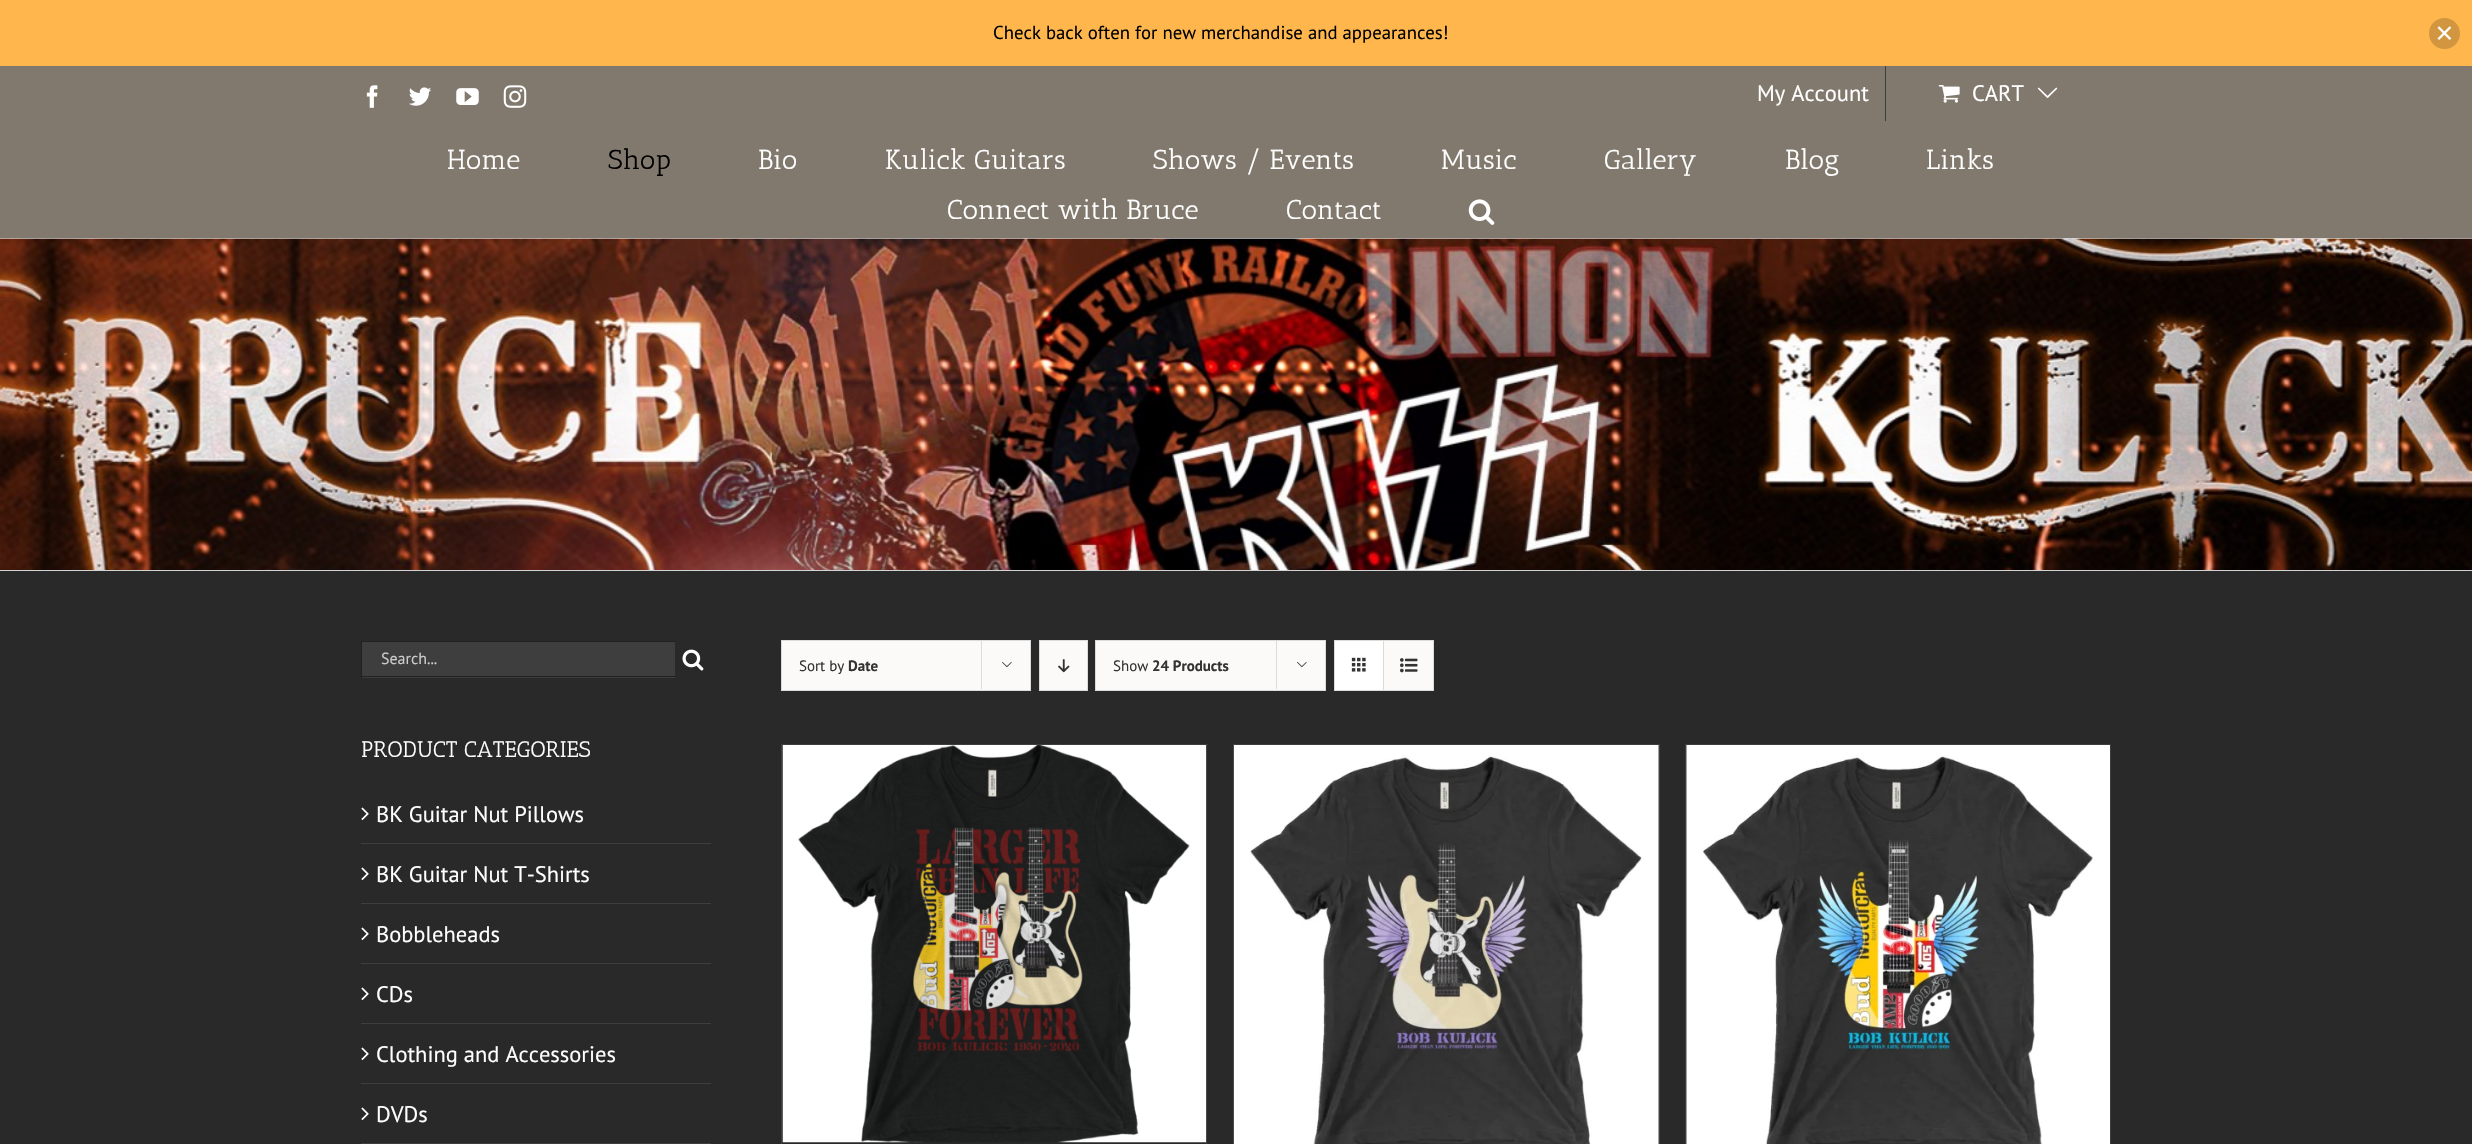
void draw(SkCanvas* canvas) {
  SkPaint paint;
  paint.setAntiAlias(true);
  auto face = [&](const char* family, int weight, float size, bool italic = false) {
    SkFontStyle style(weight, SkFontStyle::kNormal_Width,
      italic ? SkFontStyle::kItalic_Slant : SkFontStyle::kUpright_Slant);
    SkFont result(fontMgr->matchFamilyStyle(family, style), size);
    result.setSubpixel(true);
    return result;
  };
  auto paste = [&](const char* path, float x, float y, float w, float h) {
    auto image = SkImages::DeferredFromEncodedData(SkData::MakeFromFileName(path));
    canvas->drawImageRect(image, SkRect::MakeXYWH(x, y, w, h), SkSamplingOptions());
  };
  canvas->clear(0xff29292a);
  paint.setColor(0xffffb74d);
  canvas->drawRect(SkRect::MakeXYWH(0, 0, 2472, 66), paint);
  paint.setColor(0xffd1963f);
  canvas->drawCircle(2444.5f, 33.5f, 15.5f, paint);
  paste("img/1.png", 2437, 26, 15, 14);
  paint.setColor(0xff81796d);
  canvas->drawRect(SkRect::MakeXYWH(0, 66, 2472, 57), paint);
  paste("img/2.png", 366, 85, 12, 23);
  paste("img/3.png", 409, 87, 23, 19);
  paste("img/4.png", 456, 88, 23, 17);
  paste("img/5.png", 503, 85, 24, 23);
  paint.setColor(0xff3e3e3e);
  canvas->drawRect(SkRect::MakeXYWH(1885, 66, 1, 55), paint);
  paste("img/6.png", 1938, 85, 22, 18);
  paste("img/7.png", 2037, 87, 21, 11);
  paint.setColor(0xff81796d);
  canvas->drawRect(SkRect::MakeXYWH(0, 123, 2472, 115), paint);
  paste("img/8.png", 1468, 199, 27, 26);
  paint.setColor(0xffd2d3d4);
  canvas->drawRect(SkRect::MakeXYWH(0, 238, 2472, 1), paint);
  canvas->drawRect(SkRect::MakeXYWH(0, 570, 2472, 1), paint);
  paste("img/9.png", 0, 238, 2472, 332);
  {
    const struct { float x, y, w, h; SkColor color; } items[] = {
      {362, 642, 313, 36, 0xff3e3e3e},
      {361, 641, 314, 1, 0xff212122},
      {361, 676, 314, 1, 0xff212122},
      {361, 641, 1, 37, 0xff212122},
    };
    for (auto [x, y, w, h, color] : items) {
      paint.setColor(color);
      canvas->drawRect(SkRect::MakeXYWH(x, y, w, h), paint);
    }
  }
  paste("img/10.png", 682, 649, 22, 22);
  paint.setColor(0xff3e3e3e);
  canvas->drawRect(SkRect::MakeXYWH(361, 843, 350, 1), paint);
  paste("img/11.png", 361, 807, 8, 13);
  canvas->drawRect(SkRect::MakeXYWH(361, 903, 350, 1), paint);
  paste("img/11.png", 361, 867, 8, 13);
  canvas->drawRect(SkRect::MakeXYWH(361, 963, 350, 1), paint);
  paste("img/11.png", 361, 927, 8, 13);
  canvas->drawRect(SkRect::MakeXYWH(361, 1023, 350, 1), paint);
  paste("img/11.png", 361, 987, 8, 13);
  canvas->drawRect(SkRect::MakeXYWH(361, 1083, 350, 1), paint);
  paste("img/11.png", 361, 1047, 8, 13);
  canvas->drawRect(SkRect::MakeXYWH(361, 1143, 350, 1), paint);
  paste("img/11.png", 361, 1107, 8, 13);
  paint.setColor(0xfffbfaf9);
  canvas->drawRect(SkRect::MakeXYWH(781.5f, 640.5f, 249, 50), paint);
  paint.setStroke(true);
  paint.setStrokeWidth(1);
  paint.setColor(0xffdbdbdb);
  canvas->drawRect(SkRect::MakeXYWH(781.5f, 640.5f, 249, 50), paint);
  paint.setStroke(false);
  canvas->drawRect(SkRect::MakeXYWH(981, 640, 1, 49), paint);
  paste("img/12.png", 1002, 662, 10, 6);
  paint.setColor(0xfffbfaf9);
  canvas->drawRect(SkRect::MakeXYWH(1039.5f, 640.5f, 48, 50), paint);
  paint.setStroke(true);
  paint.setColor(0xffdbdbdb);
  canvas->drawRect(SkRect::MakeXYWH(1039.5f, 640.5f, 48, 50), paint);
  paste("img/13.png", 1058, 659, 12, 14);
  paint.setStroke(false);
  paint.setColor(0xfffbfaf9);
  canvas->drawRect(SkRect::MakeXYWH(1095.5f, 640.5f, 230, 50), paint);
  paint.setStroke(true);
  paint.setColor(0xffdbdbdb);
  canvas->drawRect(SkRect::MakeXYWH(1095.5f, 640.5f, 230, 50), paint);
  paint.setStroke(false);
  canvas->drawRect(SkRect::MakeXYWH(1276, 640, 1, 49), paint);
  paste("img/12.png", 1297, 662, 10, 6);
  paint.setStroke(true);
  canvas->drawRect(SkRect::MakeXYWH(1334.5f, 640.5f, 99, 50), paint);
  paint.setStroke(false);
  paint.setColor(0xffffffff);
  canvas->drawRect(SkRect::MakeXYWH(1335, 641, 48, 49), paint);
  paint.setColor(0xffdbdbdb);
  canvas->drawRect(SkRect::MakeXYWH(1383, 641, 1, 49), paint);
  paste("img/14.png", 1351, 657, 15, 15);
  paint.setColor(0xfffbfaf9);
  canvas->drawRect(SkRect::MakeXYWH(1384, 641, 49, 49), paint);
  paste("img/15.png", 1400, 658, 18, 15);
  {
    const struct { float x, y, w, h; SkColor color; } items[] = {
      {781, 744, 427, 1, 0xff3e3e3e},
      {1206, 744, 1, 400, 0xff3e3e3e},
      {781, 744, 1, 400, 0xff3e3e3e},
    };
    for (auto [x, y, w, h, color] : items) {
      paint.setColor(color);
      canvas->drawRect(SkRect::MakeXYWH(x, y, w, h), paint);
    }
  }
  paste("img/16.png", 782, 745, 425, 398);
  {
    const struct { float x, y, w, h; SkColor color; } items[] = {
      {1233, 744, 427, 1, 0xff3e3e3e},
      {1659, 744, 1, 400, 0xff3e3e3e},
      {1233, 744, 1, 400, 0xff3e3e3e},
    };
    for (auto [x, y, w, h, color] : items) {
      paint.setColor(color);
      canvas->drawRect(SkRect::MakeXYWH(x, y, w, h), paint);
    }
  }
  paste("img/17.png", 1233, 745, 426, 399);
  {
    const struct { float x, y, w, h; SkColor color; } items[] = {
      {1685, 744, 426, 1, 0xff3e3e3e},
      {2110, 744, 1, 400, 0xff3e3e3e},
      {1685, 744, 1, 400, 0xff3e3e3e},
    };
    for (auto [x, y, w, h, color] : items) {
      paint.setColor(color);
      canvas->drawRect(SkRect::MakeXYWH(x, y, w, h), paint);
    }
  }
  paste("img/18.png", 1686, 745, 424, 399);
  auto f0 = face("PT Sans", 400, 18.75f);
  paint.setColor(0xff000000);
  canvas->drawString("Check back often for new merchandise and appearances!", 993, 39, f0, paint);
  auto f1 = face("PT Sans", 400, 22.5f);
  paint.setColor(0xffffffff);
  canvas->drawString("My Account", 1757, 101, f1, paint);
  canvas->drawString("CART", 1972, 101, f1, paint);
  auto f2 = face("Antic Slab", 400, 27.5f);
  canvas->drawString("Home", 447, 169, f2, paint);
  paint.setColor(0xff000000);
  canvas->drawString("Shop", 608, 169, f2, paint);
  paint.setColor(0xffffffff);
  {
    const struct { const char* s; float x, y; } items[] = {
      {"Bio", 758, 169},
      {"Kulick Guitars", 885, 169},
      {"Shows / Events", 1153, 169},
      {"Music", 1441, 169},
      {"Gallery", 1604, 169},
      {"Blog", 1785, 169},
      {"Links", 1926, 169},
      {"Connect with Bruce", 947, 219},
      {"Contact", 1286, 219},
    };
    for (auto [s, x, y] : items) {
      canvas->drawString(s, x, y, f2, paint);
    }
  }
  auto f3 = face("PT Sans", 400, 16);
  paint.setColor(0xffcccccc);
  canvas->drawString("Search...", 381, 664, f3, paint);
  auto f4 = face("Antic Slab", 400, 22.5f);
  paint.setColor(0xffffffff);
  canvas->drawString("PRODUCT CATEGORIES", 361, 757, f4, paint);
  {
    const struct { const char* s; float x, y; } items[] = {
      {"BK Guitar Nut Pillows", 376, 822},
      {"BK Guitar Nut T-Shirts", 376, 882},
      {"Bobbleheads", 376, 942},
      {"CDs", 376, 1002},
      {"Clothing and Accessories", 376, 1062},
      {"DVDs", 376, 1122},
    };
    for (auto [s, x, y] : items) {
      canvas->drawString(s, x, y, f1, paint);
    }
  }
  auto f5 = face("PT Sans", 400, 15);
  paint.setColor(0xff333333);
  canvas->drawString("Sort by", 799, 671, f5, paint);
  auto f6 = face("PT Sans", 700, 15);
  canvas->drawString("Date", 848, 671, f6, paint);
  canvas->drawString("Show", 1113, 671, f5, paint);
  canvas->drawString("24 Products", 1152, 671, f6, paint);
}
